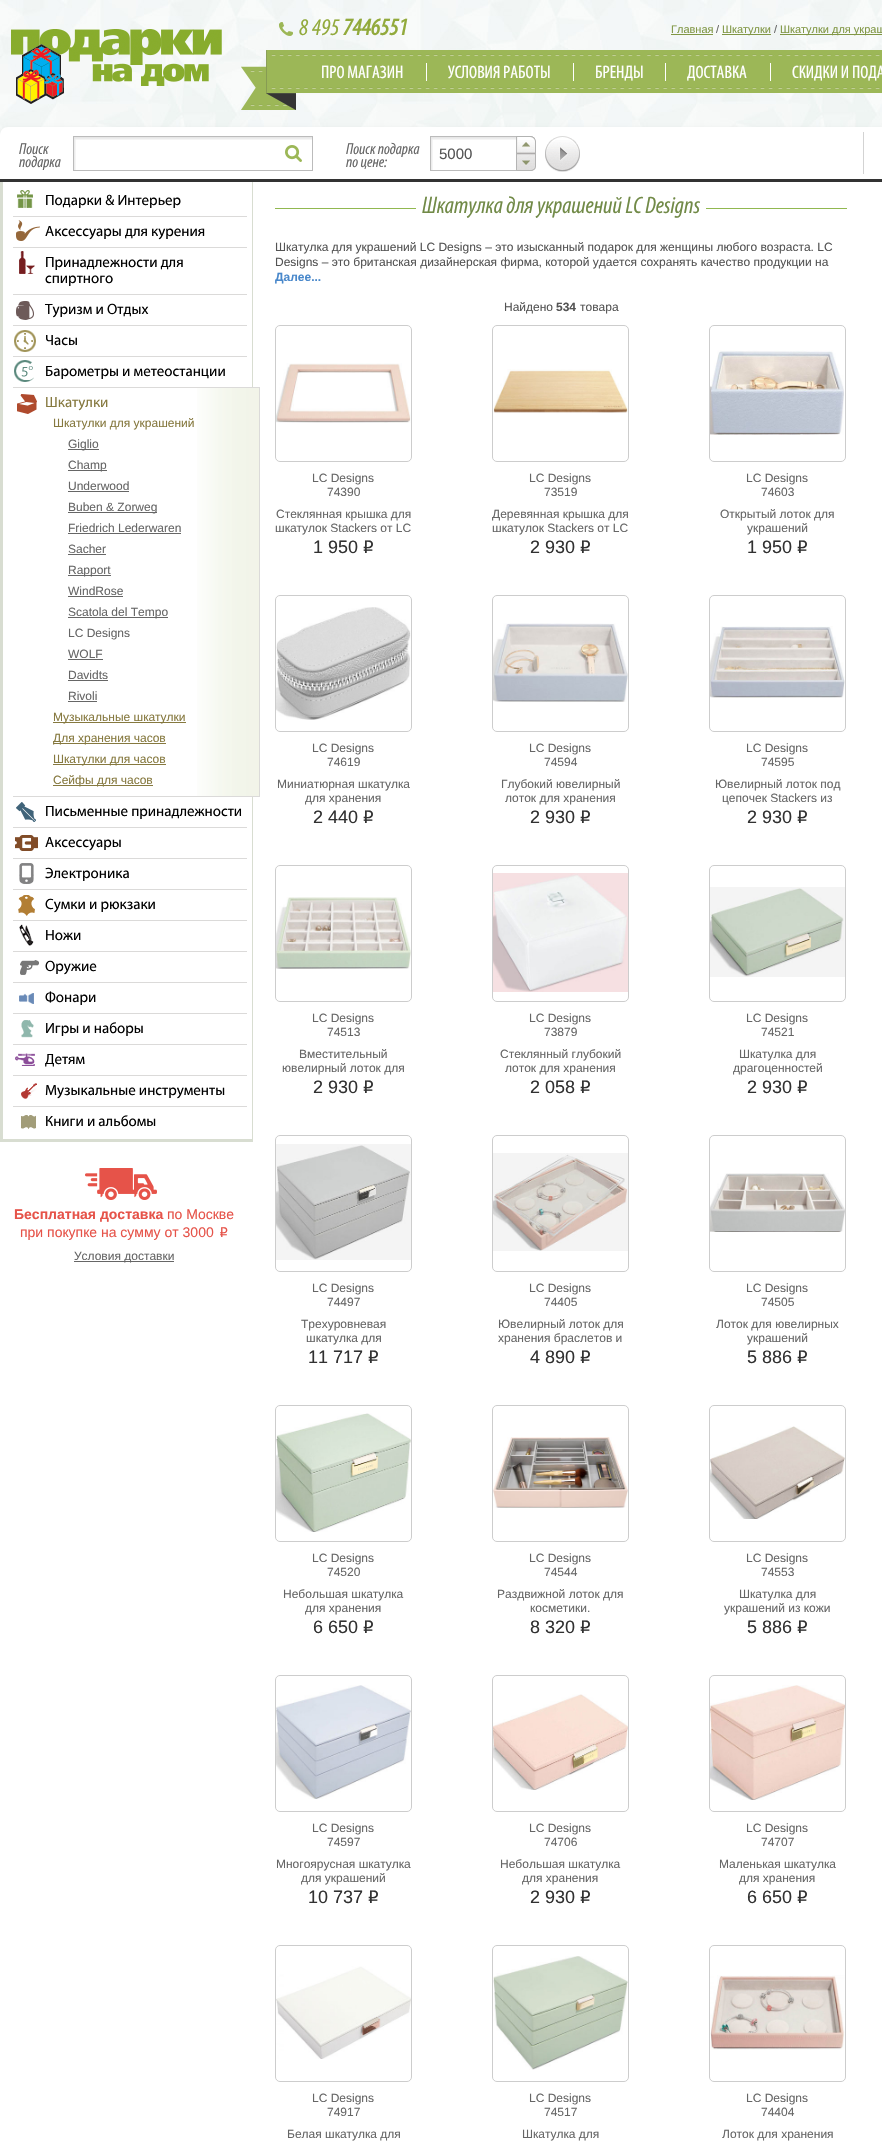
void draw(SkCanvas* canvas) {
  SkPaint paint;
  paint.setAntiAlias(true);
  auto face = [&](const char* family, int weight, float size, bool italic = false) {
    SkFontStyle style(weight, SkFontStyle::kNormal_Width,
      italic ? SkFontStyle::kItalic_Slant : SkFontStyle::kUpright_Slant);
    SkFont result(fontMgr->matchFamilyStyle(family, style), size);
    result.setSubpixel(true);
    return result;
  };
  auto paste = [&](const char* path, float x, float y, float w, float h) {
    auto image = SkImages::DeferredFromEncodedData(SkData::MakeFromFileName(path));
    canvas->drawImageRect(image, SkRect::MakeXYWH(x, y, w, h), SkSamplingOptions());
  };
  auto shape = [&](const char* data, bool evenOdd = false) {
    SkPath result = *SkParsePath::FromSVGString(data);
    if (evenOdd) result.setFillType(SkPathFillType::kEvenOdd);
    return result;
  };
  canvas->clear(0xffffffff);
  paste("img/1.png", 0, 0, 882, 135);
  paste("img/2.png", 11, 29, 211, 75);
  paste("img/3.png", 279, 22, 14, 14);
  {
    const struct { float x, y, w, h; SkColor color; } items[] = {
      {671, 34, 42, 1, 0xff819745},
      {722, 34, 49, 1, 0xff819745},
      {780, 34, 102, 1, 0xff819745},
    };
    for (auto [x, y, w, h, color] : items) {
      paint.setColor(color);
      canvas->drawRect(SkRect::MakeXYWH(x, y, w, h), paint);
    }
  }
  paste("img/4.png", 241, 50, 641, 60);
  {
    const struct { float x, y, w, h; SkColor color; } items[] = {
      {426, 63, 1, 18, 0xffffffff},
      {573, 63, 1, 18, 0xffffffff},
      {665, 63, 1, 18, 0xffffffff},
      {770, 63, 1, 18, 0xffffffff},
    };
    for (auto [x, y, w, h, color] : items) {
      paint.setColor(color);
      canvas->drawRect(SkRect::MakeXYWH(x, y, w, h), paint);
    }
  }
  paint.setColor(0xffc5c9c9);
  paint.setMaskFilter(SkMaskFilter::MakeBlur(kNormal_SkBlurStyle, 3));
  canvas->drawRoundRect(SkRect::MakeXYWH(0, 131, 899, 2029), 8, 8, paint);
  paint.setMaskFilter(nullptr);
  paint.setColor(0xffffffff);
  canvas->drawPath(shape("M8 127H882C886.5 127 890 130.5 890 135V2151H0V135C0 130.5 3.5 127 8 127Z"), paint);
  paint.setColor(0xff333333);
  canvas->drawRect(SkRect::MakeXYWH(0, 179, 882, 3), paint);
  paste("img/5.png", 74, 137, 238, 33);
  paint.setStroke(true);
  paint.setStrokeWidth(1);
  paint.setColor(0xffbbbbbb);
  canvas->drawRect(SkRect::MakeXYWH(73.5f, 136.5f, 239, 34), paint);
  paste("img/6.png", 285, 145, 17, 17);
  paste("img/7.png", 431, 137, 85, 33);
  canvas->drawRect(SkRect::MakeXYWH(430.5f, 136.5f, 105, 34), paint);
  paste("img/8.png", 516, 136, 20, 18);
  paste("img/9.png", 516, 154, 20, 17);
  paste("img/10.png", 545, 136, 35, 36);
  paint.setStroke(false);
  {
    const struct { float x, y, w, h; SkColor color; } items[] = {
      {863, 132, 1, 42, 0xffd3d3d3},
      {252, 182, 1, 960, 0xffd8ddd1},
      {0, 1139, 253, 3, 0xffd8ddd1},
      {0, 182, 3, 960, 0xffd8ddd1},
    };
    for (auto [x, y, w, h, color] : items) {
      paint.setColor(color);
      canvas->drawRect(SkRect::MakeXYWH(x, y, w, h), paint);
    }
  }
  paste("img/11.png", 17, 190, 16, 18);
  paint.setColor(0xffdbdad9);
  canvas->drawRect(SkRect::MakeXYWH(13, 216, 234, 1), paint);
  paste("img/12.png", 16, 220, 24, 21);
  canvas->drawRect(SkRect::MakeXYWH(13, 247, 234, 1), paint);
  paste("img/13.png", 19, 251, 16, 23);
  canvas->drawRect(SkRect::MakeXYWH(13, 294, 234, 1), paint);
  paste("img/14.png", 16, 301, 18, 19);
  canvas->drawRect(SkRect::MakeXYWH(13, 325, 234, 1), paint);
  paste("img/15.png", 14, 330, 22, 22);
  canvas->drawRect(SkRect::MakeXYWH(13, 356, 234, 1), paint);
  paste("img/16.png", 14, 360, 20, 22);
  paste("img/17.png", 197, 388, 62, 408);
  {
    const struct { float x, y, w, h; SkColor color; } items[] = {
      {13, 387, 247, 1, 0xffdbdad9},
      {259, 387, 1, 410, 0xffdbdad9},
      {13, 796, 247, 1, 0xffdbdad9},
    };
    for (auto [x, y, w, h, color] : items) {
      paint.setColor(color);
      canvas->drawRect(SkRect::MakeXYWH(x, y, w, h), paint);
    }
  }
  paste("img/18.png", 17, 394, 20, 20);
  {
    const struct { float x, y, w, h; SkColor color; } items[] = {
      {68, 449, 31, 1, 0xff666666},
      {68, 470, 39, 1, 0xff666666},
      {68, 491, 61, 1, 0xff666666},
      {68, 512, 89, 1, 0xff666666},
      {68, 533, 113, 1, 0xff666666},
      {68, 554, 38, 1, 0xff666666},
      {68, 575, 43, 1, 0xff666666},
      {68, 596, 55, 1, 0xff666666},
      {68, 617, 100, 1, 0xff666666},
      {68, 659, 35, 1, 0xff666666},
      {68, 680, 40, 1, 0xff666666},
      {68, 701, 29, 1, 0xff666666},
      {53, 722, 133, 1, 0xff86793f},
      {53, 743, 113, 1, 0xff86793f},
      {53, 764, 113, 1, 0xff86793f},
      {53, 785, 100, 1, 0xff86793f},
    };
    for (auto [x, y, w, h, color] : items) {
      paint.setColor(color);
      canvas->drawRect(SkRect::MakeXYWH(x, y, w, h), paint);
    }
  }
  paste("img/19.png", 16, 802, 20, 20);
  paint.setColor(0xffdbdad9);
  canvas->drawRect(SkRect::MakeXYWH(13, 827, 234, 1), paint);
  paste("img/20.png", 15, 835, 23, 16);
  canvas->drawRect(SkRect::MakeXYWH(13, 858, 234, 1), paint);
  paste("img/21.png", 19, 863, 15, 21);
  canvas->drawRect(SkRect::MakeXYWH(13, 889, 234, 1), paint);
  paste("img/22.png", 18, 895, 17, 21);
  canvas->drawRect(SkRect::MakeXYWH(13, 920, 234, 1), paint);
  paste("img/23.png", 19, 924, 15, 22);
  canvas->drawRect(SkRect::MakeXYWH(13, 951, 234, 1), paint);
  paste("img/24.png", 20, 960, 19, 15);
  canvas->drawRect(SkRect::MakeXYWH(13, 982, 234, 1), paint);
  paste("img/25.png", 19, 993, 15, 11);
  canvas->drawRect(SkRect::MakeXYWH(13, 1013, 234, 1), paint);
  paste("img/26.png", 21, 1020, 13, 18);
  canvas->drawRect(SkRect::MakeXYWH(13, 1044, 234, 1), paint);
  paste("img/27.png", 15, 1053, 20, 13);
  canvas->drawRect(SkRect::MakeXYWH(13, 1075, 234, 1), paint);
  paste("img/28.png", 21, 1083, 16, 16);
  canvas->drawRect(SkRect::MakeXYWH(13, 1106, 234, 1), paint);
  paste("img/29.png", 21, 1115, 15, 14);
  paste("img/30.png", 85, 1168, 72, 32);
  paint.setColor(0xff666666);
  canvas->drawRect(SkRect::MakeXYWH(74, 1261, 100, 1), paint);
  paint.setColor(0xff91b850);
  canvas->drawRect(SkRect::MakeXYWH(275, 208, 572, 1), paint);
  paint.setColor(0xffffffff);
  canvas->drawRoundRect(SkRect::MakeXYWH(416, 196, 290, 22), 5, 5, paint);
  paint.setStroke(true);
  paint.setColor(0xffcdcdcd);
  canvas->drawRoundRect(SkRect::MakeXYWH(275.5f, 325.5f, 136, 136), 4.5f, 4.5f, paint);
  paste("img/31.png", 276, 363, 135, 60);
  canvas->drawRoundRect(SkRect::MakeXYWH(492.5f, 325.5f, 136, 136), 4.5f, 4.5f, paint);
  paste("img/32.png", 493, 369, 135, 44);
  canvas->drawRoundRect(SkRect::MakeXYWH(709.5f, 325.5f, 136, 136), 4.5f, 4.5f, paint);
  paste("img/33.png", 710, 350, 134, 85);
  canvas->drawRoundRect(SkRect::MakeXYWH(275.5f, 595.5f, 136, 136), 4.5f, 4.5f, paint);
  paste("img/34.png", 276, 607, 135, 113);
  canvas->drawRoundRect(SkRect::MakeXYWH(492.5f, 595.5f, 136, 136), 4.5f, 4.5f, paint);
  paste("img/35.png", 493, 623, 135, 79);
  canvas->drawRoundRect(SkRect::MakeXYWH(709.5f, 595.5f, 136, 136), 4.5f, 4.5f, paint);
  paste("img/36.png", 710, 626, 135, 72);
  canvas->drawRoundRect(SkRect::MakeXYWH(275.5f, 865.5f, 136, 136), 4.5f, 4.5f, paint);
  paste("img/37.png", 276, 897, 135, 72);
  canvas->drawRoundRect(SkRect::MakeXYWH(492.5f, 865.5f, 136, 136), 4.5f, 4.5f, paint);
  paste("img/38.png", 493, 873, 135, 119);
  canvas->drawRoundRect(SkRect::MakeXYWH(709.5f, 865.5f, 136, 136), 4.5f, 4.5f, paint);
  paste("img/39.png", 710, 887, 135, 90);
  canvas->drawRoundRect(SkRect::MakeXYWH(275.5f, 1135.5f, 136, 136), 4.5f, 4.5f, paint);
  paste("img/40.png", 276, 1144, 135, 116);
  canvas->drawRoundRect(SkRect::MakeXYWH(492.5f, 1135.5f, 136, 136), 4.5f, 4.5f, paint);
  paste("img/41.png", 493, 1153, 135, 98);
  canvas->drawRoundRect(SkRect::MakeXYWH(709.5f, 1135.5f, 136, 136), 4.5f, 4.5f, paint);
  paste("img/42.png", 710, 1173, 135, 59);
  canvas->drawRoundRect(SkRect::MakeXYWH(275.5f, 1405.5f, 136, 136), 4.5f, 4.5f, paint);
  paste("img/43.png", 276, 1413, 135, 119);
  canvas->drawRoundRect(SkRect::MakeXYWH(492.5f, 1405.5f, 136, 136), 4.5f, 4.5f, paint);
  paste("img/44.png", 493, 1437, 135, 71);
  canvas->drawRoundRect(SkRect::MakeXYWH(709.5f, 1405.5f, 136, 136), 4.5f, 4.5f, paint);
  paste("img/45.png", 710, 1426, 135, 93);
  canvas->drawRoundRect(SkRect::MakeXYWH(275.5f, 1675.5f, 136, 136), 4.5f, 4.5f, paint);
  paste("img/46.png", 276, 1685, 135, 114);
  canvas->drawRoundRect(SkRect::MakeXYWH(492.5f, 1675.5f, 136, 136), 4.5f, 4.5f, paint);
  paste("img/47.png", 493, 1694, 135, 96);
  canvas->drawRoundRect(SkRect::MakeXYWH(709.5f, 1675.5f, 136, 136), 4.5f, 4.5f, paint);
  paste("img/48.png", 710, 1685, 135, 115);
  canvas->drawRoundRect(SkRect::MakeXYWH(275.5f, 1945.5f, 136, 136), 4.5f, 4.5f, paint);
  paste("img/49.png", 276, 1966, 135, 93);
  canvas->drawRoundRect(SkRect::MakeXYWH(492.5f, 1945.5f, 136, 136), 4.5f, 4.5f, paint);
  paste("img/50.png", 493, 1956, 135, 114);
  canvas->drawRoundRect(SkRect::MakeXYWH(709.5f, 1945.5f, 136, 136), 4.5f, 4.5f, paint);
  paste("img/51.png", 710, 1975, 135, 75);
  auto f0 = face("Myriad", 400, 24, true);
  paint.setStroke(false);
  paint.setColor(0xff92aa3c);
  canvas->drawString("8 495", 299, 35, f0, paint);
  auto f1 = face("Myriad", 700, 24, true);
  canvas->drawString("7446551", 343, 35, f1, paint);
  auto f2 = face("Liberation Sans", 400, 11);
  paint.setColor(0xff819745);
  canvas->drawString("Главная", 671, 33, f2, paint);
  paint.setColor(0xff666666);
  canvas->drawString("/", 716, 33, f2, paint);
  paint.setColor(0xff819745);
  canvas->drawString("Шкатулки", 722, 33, f2, paint);
  paint.setColor(0xff666666);
  canvas->drawString("/", 774, 33, f2, paint);
  paint.setColor(0xff819745);
  canvas->drawString("Шкатулки для украш", 780, 33, f2, paint);
  auto f3 = face("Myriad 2", 400, 18);
  paint.setColor(0xffffffff);
  {
    const struct { const char* s; float x, y; } items[] = {
      {"ПРО МАГАЗИН", 321, 78},
      {"УСЛОВИЯ РАБОТЫ", 448, 78},
      {"БРЕНДЫ", 595, 78},
      {"ДОСТАВКА", 687, 78},
      {"СКИДКИ И ПОДА", 792, 78},
    };
    for (auto [s, x, y] : items) {
      canvas->drawString(s, x, y, f3, paint);
    }
  }
  auto f4 = face("Myriad", 400, 16, true);
  paint.setColor(0xff666666);
  {
    const struct { const char* s; float x, y; } items[] = {
      {"Поиск", 19, 154},
      {"подарка", 19, 167},
      {"Поиск подарка", 346, 154},
      {"по цене:", 346, 167},
    };
    for (auto [s, x, y] : items) {
      canvas->drawString(s, x, y, f4, paint);
    }
  }
  auto f5 = face("Liberation Sans", 400, 15);
  paint.setColor(0xff545454);
  canvas->drawString("5000", 439, 159, f5, paint);
  auto f6 = face("Myriad", 400, 15);
  paint.setColor(0xff000000);
  {
    const struct { const char* s; float x, y; } items[] = {
      {"Подарки & Интерьер", 45, 205},
      {"Аксессуары для курения", 45, 236},
      {"Принадлежности для", 45, 267},
      {"спиртного", 45, 283},
      {"Туризм и Отдых", 45, 314},
      {"Часы", 45, 345},
      {"Барометры и метеостанции", 45, 376},
    };
    for (auto [s, x, y] : items) {
      canvas->drawString(s, x, y, f6, paint);
    }
  }
  paint.setColor(0xff86793f);
  canvas->drawString("Шкатулки", 45, 407, f6, paint);
  auto f7 = face("Liberation Sans", 400, 12);
  canvas->drawString("Шкатулки для украшений", 53, 427, f7, paint);
  paint.setColor(0xff666666);
  {
    const struct { const char* s; float x, y; } items[] = {
      {"Giglio", 68, 448},
      {"Champ", 68, 469},
      {"Underwood", 68, 490},
      {"Buben & Zorweg", 68, 511},
      {"Friedrich Lederwaren", 68, 532},
      {"Sacher", 68, 553},
      {"Rapport", 68, 574},
      {"WindRose", 68, 595},
      {"Scatola del Tempo", 68, 616},
      {"LC Designs", 68, 637},
      {"WOLF", 68, 658},
      {"Davidts", 68, 679},
      {"Rivoli", 68, 700},
    };
    for (auto [s, x, y] : items) {
      canvas->drawString(s, x, y, f7, paint);
    }
  }
  paint.setColor(0xff86793f);
  {
    const struct { const char* s; float x, y; } items[] = {
      {"Музыкальные шкатулки", 53, 721},
      {"Для хранения часов", 53, 742},
      {"Шкатулки для часов", 53, 763},
      {"Сейфы для часов", 53, 784},
    };
    for (auto [s, x, y] : items) {
      canvas->drawString(s, x, y, f7, paint);
    }
  }
  paint.setColor(0xff000000);
  {
    const struct { const char* s; float x, y; } items[] = {
      {"Письменные принадлежности", 45, 816},
      {"Аксессуары", 45, 847},
      {"Электроника", 45, 878},
      {"Сумки и рюкзаки", 45, 909},
      {"Ножи", 45, 940},
      {"Оружие", 45, 971},
      {"Фонари", 45, 1002},
      {"Игры и наборы", 45, 1033},
      {"Детям", 45, 1064},
      {"Музыкальные инструменты", 45, 1095},
      {"Книги и альбомы", 45, 1126},
    };
    for (auto [s, x, y] : items) {
      canvas->drawString(s, x, y, f6, paint);
    }
  }
  auto f8 = face("Liberation Sans", 700, 14);
  paint.setColor(0xffe65349);
  canvas->drawString("Бесплатная доставка", 14, 1219, f8, paint);
  auto f9 = face("Liberation Sans", 400, 14);
  canvas->drawString("по Москве", 167, 1219, f9, paint);
  canvas->drawString("при покупке на сумму от 3000", 20, 1237, f9, paint);
  auto f10 = face("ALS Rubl", 400, 14);
  canvas->drawString("i", 218, 1237, f10, paint);
  paint.setColor(0xff666666);
  canvas->drawString("Условия доставки", 74, 1260, f7, paint);
  paint.setColor(0xff718a47);
  canvas->drawString("Шкатулка для украшений LC Designs", 422, 213, f0, paint);
  paint.setColor(0xff545454);
  canvas->drawString("Шкатулка для украшений LC Designs – это изысканный подарок для женщины любого возраста. LC", 275, 251, f7, paint);
  canvas->drawString("Designs – это британская дизайнерская фирма, которой удается сохранять качество продукции на", 275, 266, f7, paint);
  auto f11 = face("Liberation Sans", 700, 12);
  paint.setColor(0xff4988cb);
  canvas->drawString("Далее...", 275, 281, f11, paint);
  paint.setColor(0xff545454);
  canvas->drawString("Найдено", 504, 311, f7, paint);
  canvas->drawString("534", 556, 311, f11, paint);
  canvas->drawString("товара", 580, 311, f7, paint);
  paint.setColor(0xff666666);
  {
    const struct { const char* s; float x, y; } items[] = {
      {"LC Designs", 312, 482},
      {"74390", 327, 496},
      {"Стеклянная крышка для", 276, 518},
      {"шкатулок Stackers от LC", 275, 532},
    };
    for (auto [s, x, y] : items) {
      canvas->drawString(s, x, y, f7, paint);
    }
  }
  auto f12 = face("Liberation Sans", 400, 18);
  paint.setColor(0xff313131);
  canvas->drawString("1 950", 313, 553, f12, paint);
  auto f13 = face("ALS Rubl", 400, 18);
  canvas->drawString("i", 361, 553, f13, paint);
  paint.setColor(0xff666666);
  {
    const struct { const char* s; float x, y; } items[] = {
      {"LC Designs", 529, 482},
      {"73519", 544, 496},
      {"Деревянная крышка для", 492, 518},
      {"шкатулок Stackers от LC", 492, 532},
    };
    for (auto [s, x, y] : items) {
      canvas->drawString(s, x, y, f7, paint);
    }
  }
  paint.setColor(0xff313131);
  canvas->drawString("2 930", 530, 553, f12, paint);
  canvas->drawString("i", 578, 553, f13, paint);
  paint.setColor(0xff666666);
  {
    const struct { const char* s; float x, y; } items[] = {
      {"LC Designs", 746, 482},
      {"74603", 761, 496},
      {"Открытый лоток для", 720, 518},
      {"украшений", 747, 532},
    };
    for (auto [s, x, y] : items) {
      canvas->drawString(s, x, y, f7, paint);
    }
  }
  paint.setColor(0xff313131);
  canvas->drawString("1 950", 747, 553, f12, paint);
  canvas->drawString("i", 795, 553, f13, paint);
  paint.setColor(0xff666666);
  {
    const struct { const char* s; float x, y; } items[] = {
      {"LC Designs", 312, 752},
      {"74619", 327, 766},
      {"Миниатюрная шкатулка", 277, 788},
      {"для хранения", 305, 802},
    };
    for (auto [s, x, y] : items) {
      canvas->drawString(s, x, y, f7, paint);
    }
  }
  paint.setColor(0xff313131);
  canvas->drawString("2 440", 313, 823, f12, paint);
  canvas->drawString("i", 361, 823, f13, paint);
  paint.setColor(0xff666666);
  {
    const struct { const char* s; float x, y; } items[] = {
      {"LC Designs", 529, 752},
      {"74594", 544, 766},
      {"Глубокий ювелирный", 501, 788},
      {"лоток для хранения", 505, 802},
    };
    for (auto [s, x, y] : items) {
      canvas->drawString(s, x, y, f7, paint);
    }
  }
  paint.setColor(0xff313131);
  canvas->drawString("2 930", 530, 823, f12, paint);
  canvas->drawString("i", 578, 823, f13, paint);
  paint.setColor(0xff666666);
  {
    const struct { const char* s; float x, y; } items[] = {
      {"LC Designs", 746, 752},
      {"74595", 761, 766},
      {"Ювелирный лоток под", 715, 788},
      {"цепочек Stackers из", 722, 802},
    };
    for (auto [s, x, y] : items) {
      canvas->drawString(s, x, y, f7, paint);
    }
  }
  paint.setColor(0xff313131);
  canvas->drawString("2 930", 747, 823, f12, paint);
  canvas->drawString("i", 795, 823, f13, paint);
  paint.setColor(0xff666666);
  {
    const struct { const char* s; float x, y; } items[] = {
      {"LC Designs", 312, 1022},
      {"74513", 327, 1036},
      {"Вместительный", 299, 1058},
      {"ювелирный лоток для", 282, 1072},
    };
    for (auto [s, x, y] : items) {
      canvas->drawString(s, x, y, f7, paint);
    }
  }
  paint.setColor(0xff313131);
  canvas->drawString("2 930", 313, 1093, f12, paint);
  canvas->drawString("i", 361, 1093, f13, paint);
  paint.setColor(0xff666666);
  {
    const struct { const char* s; float x, y; } items[] = {
      {"LC Designs", 529, 1022},
      {"73879", 544, 1036},
      {"Стеклянный глубокий", 500, 1058},
      {"лоток для хранения", 505, 1072},
    };
    for (auto [s, x, y] : items) {
      canvas->drawString(s, x, y, f7, paint);
    }
  }
  paint.setColor(0xff313131);
  canvas->drawString("2 058", 530, 1093, f12, paint);
  canvas->drawString("i", 578, 1093, f13, paint);
  paint.setColor(0xff666666);
  {
    const struct { const char* s; float x, y; } items[] = {
      {"LC Designs", 746, 1022},
      {"74521", 761, 1036},
      {"Шкатулка для", 739, 1058},
      {"драгоценностей", 733, 1072},
    };
    for (auto [s, x, y] : items) {
      canvas->drawString(s, x, y, f7, paint);
    }
  }
  paint.setColor(0xff313131);
  canvas->drawString("2 930", 747, 1093, f12, paint);
  canvas->drawString("i", 795, 1093, f13, paint);
  paint.setColor(0xff666666);
  {
    const struct { const char* s; float x, y; } items[] = {
      {"LC Designs", 312, 1292},
      {"74497", 327, 1306},
      {"Трехуровневая", 301, 1328},
      {"шкатулка для", 306, 1342},
    };
    for (auto [s, x, y] : items) {
      canvas->drawString(s, x, y, f7, paint);
    }
  }
  paint.setColor(0xff313131);
  canvas->drawString("11 717", 308, 1363, f12, paint);
  canvas->drawString("i", 366, 1363, f13, paint);
  paint.setColor(0xff666666);
  {
    const struct { const char* s; float x, y; } items[] = {
      {"LC Designs", 529, 1292},
      {"74405", 544, 1306},
      {"Ювелирный лоток для", 498, 1328},
      {"хранения браслетов и", 498, 1342},
    };
    for (auto [s, x, y] : items) {
      canvas->drawString(s, x, y, f7, paint);
    }
  }
  paint.setColor(0xff313131);
  canvas->drawString("4 890", 530, 1363, f12, paint);
  canvas->drawString("i", 578, 1363, f13, paint);
  paint.setColor(0xff666666);
  {
    const struct { const char* s; float x, y; } items[] = {
      {"LC Designs", 746, 1292},
      {"74505", 761, 1306},
      {"Лоток для ювелирных", 716, 1328},
      {"украшений", 747, 1342},
    };
    for (auto [s, x, y] : items) {
      canvas->drawString(s, x, y, f7, paint);
    }
  }
  paint.setColor(0xff313131);
  canvas->drawString("5 886", 747, 1363, f12, paint);
  canvas->drawString("i", 795, 1363, f13, paint);
  paint.setColor(0xff666666);
  {
    const struct { const char* s; float x, y; } items[] = {
      {"LC Designs", 312, 1562},
      {"74520", 327, 1576},
      {"Небольшая шкатулка", 283, 1598},
      {"для хранения", 305, 1612},
    };
    for (auto [s, x, y] : items) {
      canvas->drawString(s, x, y, f7, paint);
    }
  }
  paint.setColor(0xff313131);
  canvas->drawString("6 650", 313, 1633, f12, paint);
  canvas->drawString("i", 361, 1633, f13, paint);
  paint.setColor(0xff666666);
  {
    const struct { const char* s; float x, y; } items[] = {
      {"LC Designs", 529, 1562},
      {"74544", 544, 1576},
      {"Раздвижной лоток для", 497, 1598},
      {"косметики.", 530, 1612},
    };
    for (auto [s, x, y] : items) {
      canvas->drawString(s, x, y, f7, paint);
    }
  }
  paint.setColor(0xff313131);
  canvas->drawString("8 320", 530, 1633, f12, paint);
  canvas->drawString("i", 578, 1633, f13, paint);
  paint.setColor(0xff666666);
  {
    const struct { const char* s; float x, y; } items[] = {
      {"LC Designs", 746, 1562},
      {"74553", 761, 1576},
      {"Шкатулка для", 739, 1598},
      {"украшений из кожи", 724, 1612},
    };
    for (auto [s, x, y] : items) {
      canvas->drawString(s, x, y, f7, paint);
    }
  }
  paint.setColor(0xff313131);
  canvas->drawString("5 886", 747, 1633, f12, paint);
  canvas->drawString("i", 795, 1633, f13, paint);
  paint.setColor(0xff666666);
  {
    const struct { const char* s; float x, y; } items[] = {
      {"LC Designs", 312, 1832},
      {"74597", 327, 1846},
      {"Многоярусная шкатулка", 276, 1868},
      {"для украшений", 301, 1882},
    };
    for (auto [s, x, y] : items) {
      canvas->drawString(s, x, y, f7, paint);
    }
  }
  paint.setColor(0xff313131);
  canvas->drawString("10 737", 308, 1903, f12, paint);
  canvas->drawString("i", 366, 1903, f13, paint);
  paint.setColor(0xff666666);
  {
    const struct { const char* s; float x, y; } items[] = {
      {"LC Designs", 529, 1832},
      {"74706", 544, 1846},
      {"Небольшая шкатулка", 500, 1868},
      {"для хранения", 522, 1882},
    };
    for (auto [s, x, y] : items) {
      canvas->drawString(s, x, y, f7, paint);
    }
  }
  paint.setColor(0xff313131);
  canvas->drawString("2 930", 530, 1903, f12, paint);
  canvas->drawString("i", 578, 1903, f13, paint);
  paint.setColor(0xff666666);
  {
    const struct { const char* s; float x, y; } items[] = {
      {"LC Designs", 746, 1832},
      {"74707", 761, 1846},
      {"Маленькая шкатулка", 719, 1868},
      {"для хранения", 739, 1882},
    };
    for (auto [s, x, y] : items) {
      canvas->drawString(s, x, y, f7, paint);
    }
  }
  paint.setColor(0xff313131);
  canvas->drawString("6 650", 747, 1903, f12, paint);
  canvas->drawString("i", 795, 1903, f13, paint);
  paint.setColor(0xff666666);
  {
    const struct { const char* s; float x, y; } items[] = {
      {"LC Designs", 312, 2102},
      {"74917", 327, 2116},
      {"Белая шкатулка для", 287, 2138},
      {"LC Designs", 529, 2102},
      {"74517", 544, 2116},
      {"Шкатулка для", 522, 2138},
      {"LC Designs", 746, 2102},
      {"74404", 761, 2116},
      {"Лоток для хранения", 722, 2138},
    };
    for (auto [s, x, y] : items) {
      canvas->drawString(s, x, y, f7, paint);
    }
  }
}
